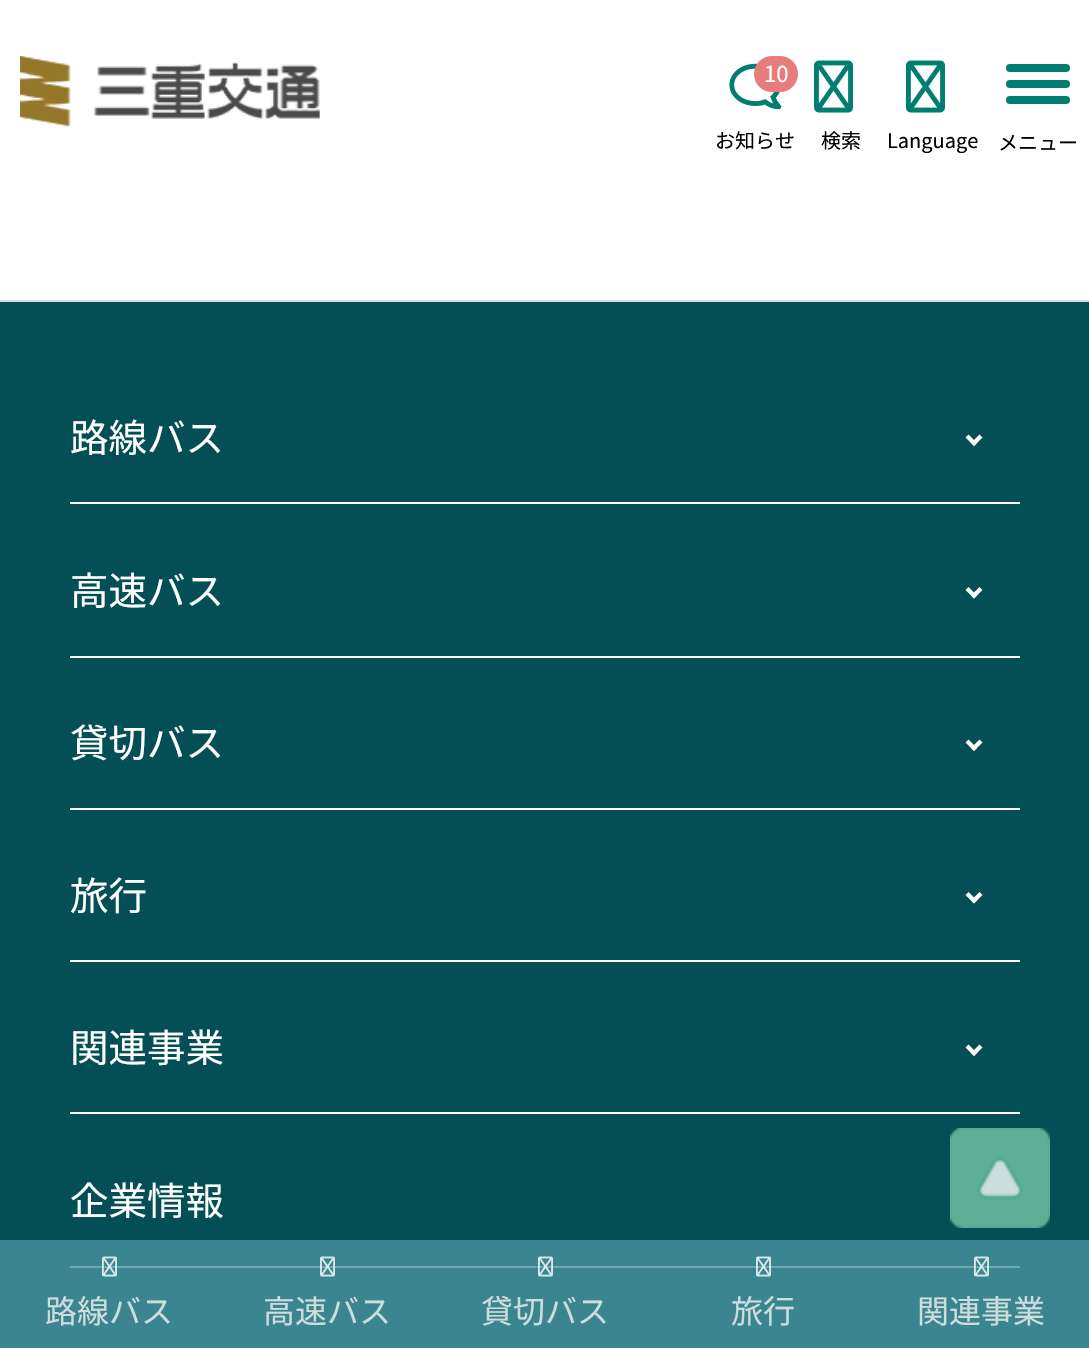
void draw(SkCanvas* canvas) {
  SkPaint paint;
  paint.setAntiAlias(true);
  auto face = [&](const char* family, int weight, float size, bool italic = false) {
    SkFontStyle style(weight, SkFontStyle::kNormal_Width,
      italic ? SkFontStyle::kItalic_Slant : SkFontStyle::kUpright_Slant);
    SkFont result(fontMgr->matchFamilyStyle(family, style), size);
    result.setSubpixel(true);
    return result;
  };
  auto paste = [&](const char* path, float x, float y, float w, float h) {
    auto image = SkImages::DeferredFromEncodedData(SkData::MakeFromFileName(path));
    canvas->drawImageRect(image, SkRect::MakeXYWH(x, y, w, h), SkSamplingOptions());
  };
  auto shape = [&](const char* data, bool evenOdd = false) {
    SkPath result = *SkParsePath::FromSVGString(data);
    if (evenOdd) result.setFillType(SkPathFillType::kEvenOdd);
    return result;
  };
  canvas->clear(0xffffffff);
  paste("img/1.png", 20, 56, 300, 71);
  paste("img/2.png", 729, 63, 53, 47);
  paint.setColor(0xffe77c7c);
  canvas->drawRoundRect(SkRect::MakeXYWH(754, 56, 44, 36), 18, 18, paint);
  paste("img/3.png", 814, 60, 39, 53);
  paste("img/3.png", 906, 60, 39, 53);
  paint.setColor(0xff007e72);
  canvas->drawRoundRect(SkRect::MakeXYWH(1006, 64, 64, 8), 4, 4, paint);
  canvas->drawRoundRect(SkRect::MakeXYWH(1006, 80, 64, 8), 4, 4, paint);
  canvas->drawRoundRect(SkRect::MakeXYWH(1006, 96, 64, 8), 4, 4, paint);
  {
    const struct { float x, y, w, h; SkColor color; } items[] = {
      {0, 302, 1089, 938, 0xff044f55},
      {0, 1240, 1089, 108, 0xff3a8590},
      {0, 300, 1089, 2, 0xffdcdcdc},
      {70, 502, 950, 2, 0xffffffff},
    };
    for (auto [x, y, w, h, color] : items) {
      paint.setColor(color);
      canvas->drawRect(SkRect::MakeXYWH(x, y, w, h), paint);
    }
  }
  canvas->drawPath(shape("M982.5 437.5L974 446L971 443L979.5 434.5Z"), paint);
  canvas->drawPath(shape("M977 443L974 446L965.5 437.5L968.5 434.5Z"), paint);
  canvas->drawRect(SkRect::MakeXYWH(70, 656, 950, 2), paint);
  canvas->drawPath(shape("M982.5 590L974 598.5L971 595.5L979.5 587Z"), paint);
  canvas->drawPath(shape("M977 595.5L974 598.5L965.5 590L968.5 587Z"), paint);
  canvas->drawRect(SkRect::MakeXYWH(70, 808, 950, 2), paint);
  canvas->drawPath(shape("M982.5 742.5L974 751L971 748L979.5 739.5Z"), paint);
  canvas->drawPath(shape("M977 748L974 751L965.5 742.5L968.5 739.5Z"), paint);
  canvas->drawRect(SkRect::MakeXYWH(70, 960, 950, 2), paint);
  canvas->drawPath(shape("M982.5 895L974 903.5L971 900.5L979.5 892Z"), paint);
  canvas->drawPath(shape("M977 900.5L974 903.5L965.5 895L968.5 892Z"), paint);
  canvas->drawRect(SkRect::MakeXYWH(70, 1112, 950, 2), paint);
  canvas->drawPath(shape("M982.5 1047.5L974 1056L971 1053L979.5 1044.5Z"), paint);
  canvas->drawPath(shape("M977 1053L974 1056L965.5 1047.5L968.5 1044.5Z"), paint);
  paint.setColor(0xff6da9b2);
  canvas->drawRect(SkRect::MakeXYWH(70, 1266, 950, 2), paint);
  paste("img/4.png", 950, 1128, 100, 100);
  paste("img/5.png", 102, 1256, 15, 21);
  paste("img/5.png", 320, 1256, 15, 21);
  paste("img/5.png", 538, 1256, 15, 21);
  paste("img/5.png", 756, 1256, 15, 21);
  paste("img/5.png", 974, 1256, 15, 21);
  auto f0 = face("Noto Sans JP", 400, 22);
  paint.setColor(0xffffffff);
  canvas->drawString("10", 764, 82, f0, paint);
  auto f1 = face("Noto Sans JP", 400, 20);
  paint.setColor(0xff000000);
  {
    const struct { const char* s; float x, y; } items[] = {
      {"お知らせ", 715, 148},
      {"検索", 821, 148},
      {"Language", 887, 148},
      {"メニュー", 998, 150},
    };
    for (auto [s, x, y] : items) {
      canvas->drawString(s, x, y, f1, paint);
    }
  }
  auto f2 = face("Noto Sans JP", 400, 38.5f);
  paint.setColor(0xffffffff);
  {
    const struct { const char* s; float x, y; } items[] = {
      {"路線バス", 70, 452},
      {"高速バス", 70, 605},
      {"貸切バス", 70, 757},
      {"旅行", 70, 910},
      {"関連事業", 70, 1062},
      {"企業情報", 70, 1215},
    };
    for (auto [s, x, y] : items) {
      canvas->drawString(s, x, y, f2, paint);
    }
  }
  auto f3 = face("Noto Sans JP", 400, 32);
  paint.setColor(0xffcddcdd);
  {
    const struct { const char* s; float x, y; } items[] = {
      {"路線バス", 45, 1323},
      {"高速バス", 263, 1323},
      {"貸切バス", 481, 1323},
      {"旅行", 731, 1323},
      {"関連事業", 917, 1323},
    };
    for (auto [s, x, y] : items) {
      canvas->drawString(s, x, y, f3, paint);
    }
  }
}
